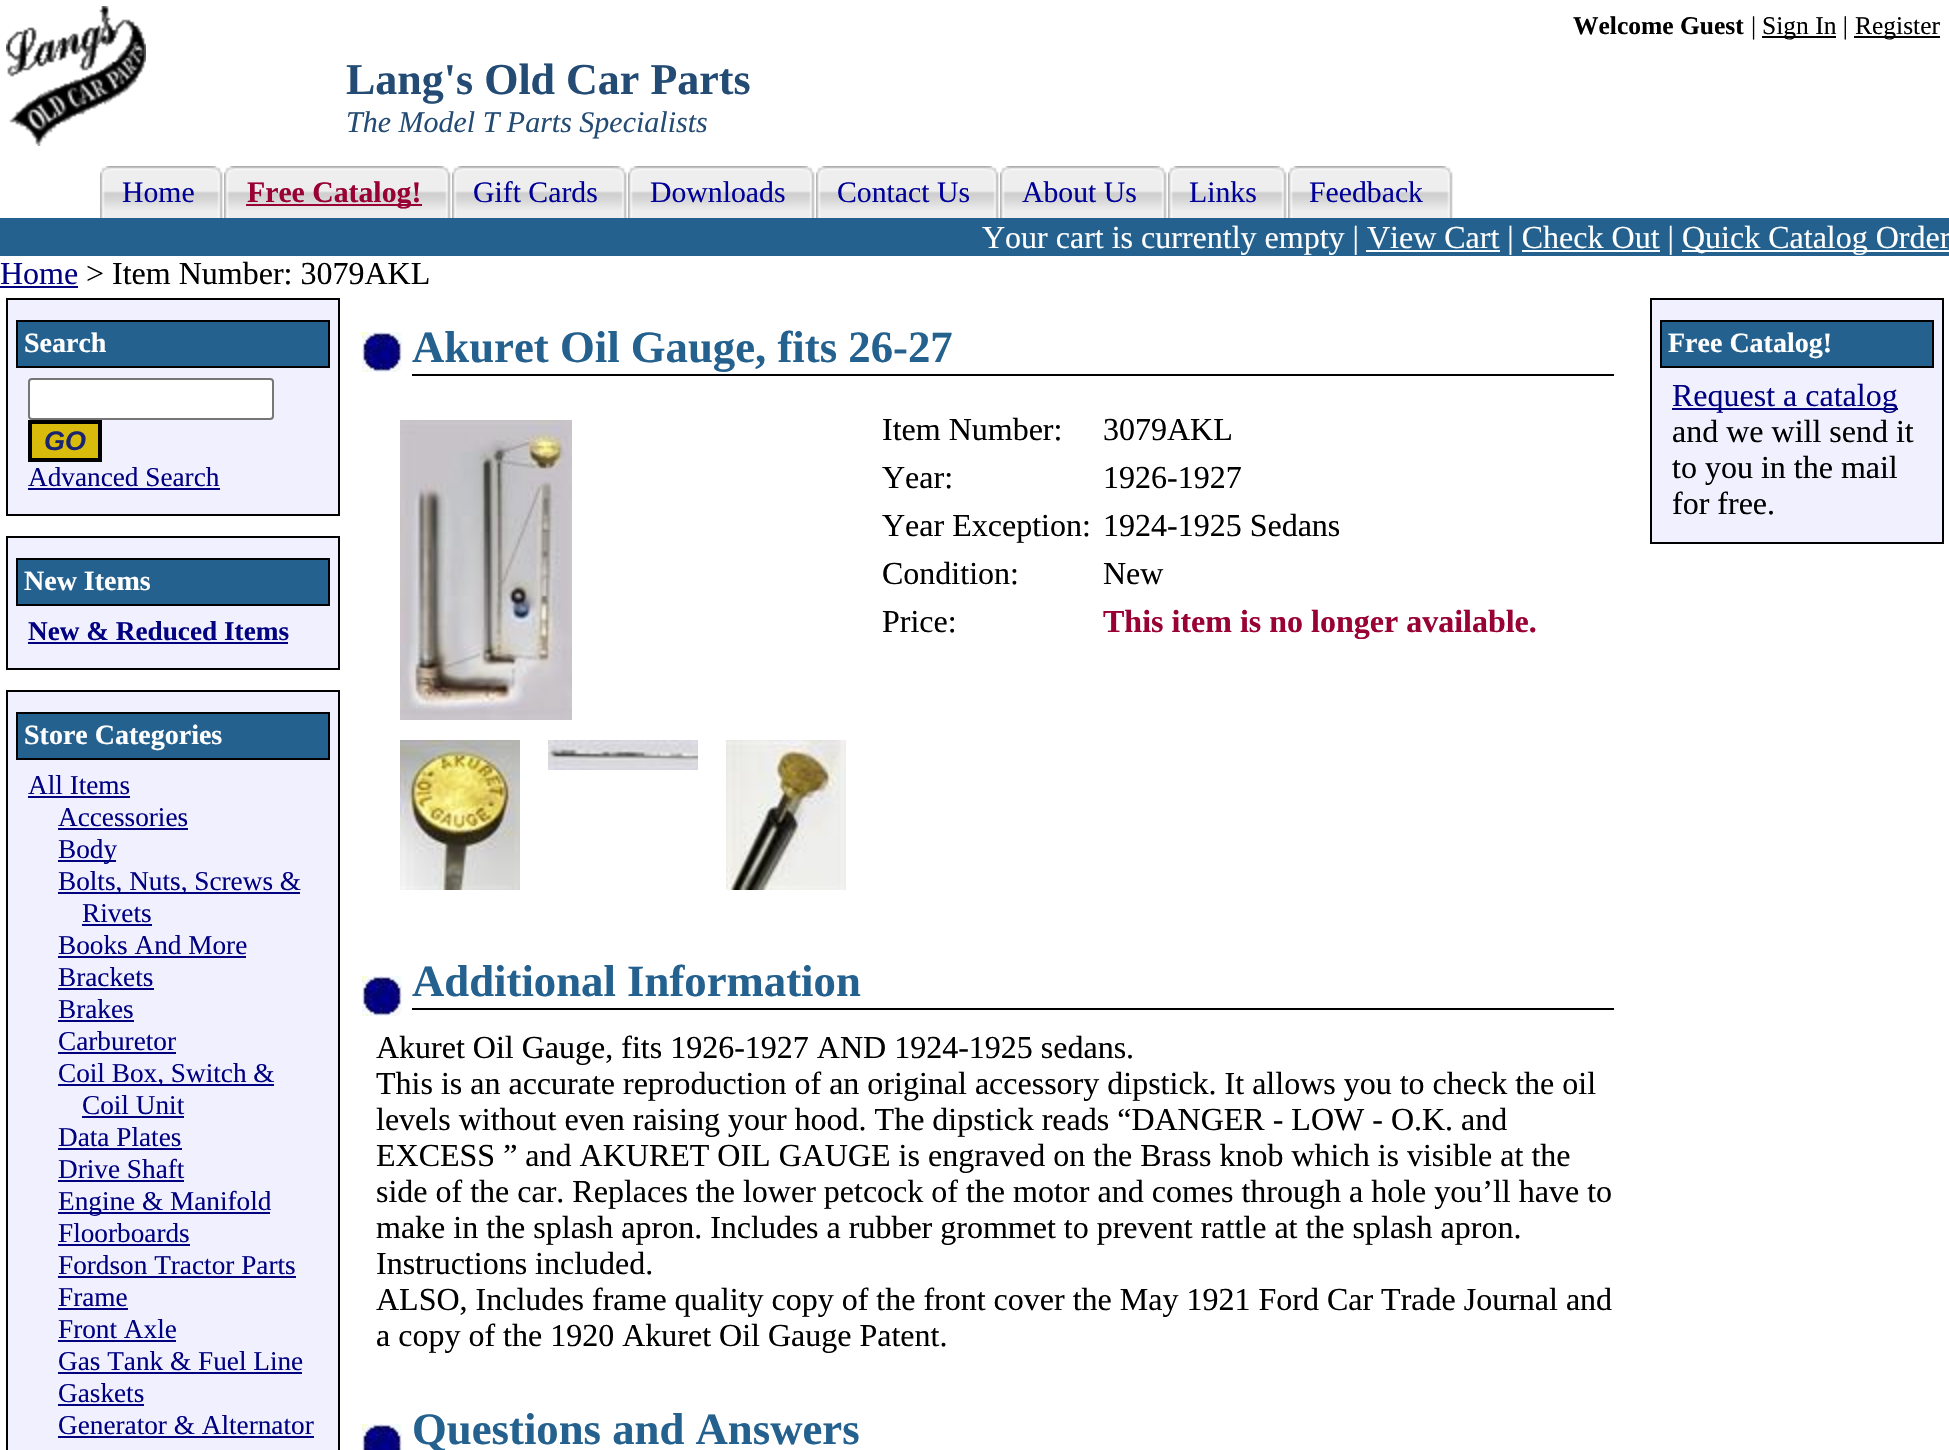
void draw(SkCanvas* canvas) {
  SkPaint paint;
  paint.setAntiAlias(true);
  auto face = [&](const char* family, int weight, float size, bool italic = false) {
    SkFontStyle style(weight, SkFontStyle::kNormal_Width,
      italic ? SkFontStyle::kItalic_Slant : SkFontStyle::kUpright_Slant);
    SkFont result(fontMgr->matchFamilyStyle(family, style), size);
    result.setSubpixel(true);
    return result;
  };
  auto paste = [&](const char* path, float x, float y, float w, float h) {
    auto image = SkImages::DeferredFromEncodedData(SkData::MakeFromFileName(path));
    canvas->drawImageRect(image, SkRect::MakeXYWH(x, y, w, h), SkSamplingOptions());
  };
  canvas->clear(0xffffffff);
  paste("img/1.png", 6, 6, 140, 140);
  paint.setColor(0xff000000);
  canvas->drawRect(SkRect::MakeXYWH(1762, 36, 74, 2), paint);
  canvas->drawRect(SkRect::MakeXYWH(1854, 36, 86, 2), paint);
  paste("img/2.png", 100, 166, 10, 52);
  paste("img/3.png", 110, 166, 113, 52);
  paste("img/2.png", 224, 166, 10, 52);
  paste("img/4.png", 234, 166, 217, 52);
  paint.setColor(0xff990033);
  canvas->drawRect(SkRect::MakeXYWH(246, 204, 176, 2), paint);
  paste("img/2.png", 452, 166, 10, 52);
  paste("img/5.png", 462, 166, 165, 52);
  paste("img/2.png", 628, 166, 10, 52);
  paste("img/6.png", 638, 166, 177, 52);
  paste("img/2.png", 816, 166, 10, 52);
  paste("img/7.png", 826, 166, 173, 52);
  paste("img/2.png", 1000, 166, 10, 52);
  paste("img/8.png", 1010, 166, 157, 52);
  paste("img/2.png", 1168, 166, 10, 52);
  paste("img/9.png", 1178, 166, 109, 52);
  paste("img/2.png", 1288, 166, 10, 52);
  paste("img/10.png", 1298, 166, 155, 52);
  {
    const struct { float x, y, w, h; SkColor color; } items[] = {
      {0, 218, 1949, 38, 0xff24618e},
      {1682, 250, 267, 2, 0xffffffff},
      {1366, 250, 134, 2, 0xffffffff},
      {1522, 250, 138, 2, 0xffffffff},
      {0, 286, 78, 2, 0xff000080},
    };
    for (auto [x, y, w, h, color] : items) {
      paint.setColor(color);
      canvas->drawRect(SkRect::MakeXYWH(x, y, w, h), paint);
    }
  }
  paint.setColor(0xfff0f0ff);
  canvas->drawRect(SkRect::MakeXYWH(7, 299, 332, 216), paint);
  paint.setStroke(true);
  paint.setStrokeWidth(2);
  paint.setColor(0xff000000);
  canvas->drawRect(SkRect::MakeXYWH(7, 299, 332, 216), paint);
  paint.setStroke(false);
  paint.setColor(0xff24618e);
  canvas->drawRect(SkRect::MakeXYWH(17, 321, 312, 46), paint);
  paint.setStroke(true);
  paint.setColor(0xff000000);
  canvas->drawRect(SkRect::MakeXYWH(17, 321, 312, 46), paint);
  paint.setStroke(false);
  paint.setColor(0xffffffff);
  canvas->drawRoundRect(SkRect::MakeXYWH(29, 379, 244, 40), 3, 3, paint);
  paint.setStroke(true);
  paint.setColor(0xff767676);
  canvas->drawRoundRect(SkRect::MakeXYWH(29, 379, 244, 40), 3, 3, paint);
  paint.setStroke(false);
  paint.setColor(0xffd9bb0c);
  canvas->drawRect(SkRect::MakeXYWH(30, 422, 70, 38), paint);
  paint.setStroke(true);
  paint.setStrokeWidth(4);
  paint.setColor(0xff000000);
  canvas->drawRect(SkRect::MakeXYWH(30, 422, 70, 38), paint);
  paint.setStroke(false);
  paint.setColor(0xff000080);
  canvas->drawRect(SkRect::MakeXYWH(28, 488, 192, 2), paint);
  paint.setColor(0xfff0f0ff);
  canvas->drawRect(SkRect::MakeXYWH(7, 537, 332, 132), paint);
  paint.setStroke(true);
  paint.setStrokeWidth(2);
  paint.setColor(0xff000000);
  canvas->drawRect(SkRect::MakeXYWH(7, 537, 332, 132), paint);
  paint.setStroke(false);
  paint.setColor(0xff24618e);
  canvas->drawRect(SkRect::MakeXYWH(17, 559, 312, 46), paint);
  paint.setStroke(true);
  paint.setColor(0xff000000);
  canvas->drawRect(SkRect::MakeXYWH(17, 559, 312, 46), paint);
  paint.setStroke(false);
  paint.setColor(0xff000080);
  canvas->drawRect(SkRect::MakeXYWH(28, 642, 260, 2), paint);
  paint.setColor(0xfff0f0ff);
  canvas->drawRect(SkRect::MakeXYWH(7, 691, 332, 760), paint);
  paint.setStroke(true);
  paint.setColor(0xff000000);
  canvas->drawRect(SkRect::MakeXYWH(7, 691, 332, 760), paint);
  paint.setStroke(false);
  paint.setColor(0xff24618e);
  canvas->drawRect(SkRect::MakeXYWH(17, 713, 312, 46), paint);
  paint.setStroke(true);
  paint.setColor(0xff000000);
  canvas->drawRect(SkRect::MakeXYWH(17, 713, 312, 46), paint);
  paint.setStroke(false);
  {
    const struct { float x, y, w, h; SkColor color; } items[] = {
      {28, 796, 102, 2, 0xff000080},
      {58, 828, 130, 2, 0xff000080},
      {58, 860, 58, 2, 0xff000080},
      {58, 892, 242, 2, 0xff000080},
      {82, 924, 70, 2, 0xff000080},
      {58, 956, 188, 2, 0xff000080},
      {58, 988, 96, 2, 0xff000080},
      {58, 1020, 76, 2, 0xff000080},
      {58, 1052, 118, 2, 0xff000080},
      {58, 1084, 216, 2, 0xff000080},
      {82, 1116, 102, 2, 0xff000080},
      {58, 1148, 124, 2, 0xff000080},
      {58, 1180, 126, 2, 0xff000080},
      {58, 1212, 212, 2, 0xff000080},
      {58, 1244, 132, 2, 0xff000080},
      {58, 1276, 238, 2, 0xff000080},
      {58, 1308, 70, 2, 0xff000080},
      {58, 1340, 118, 2, 0xff000080},
      {58, 1372, 244, 2, 0xff000080},
      {58, 1404, 86, 2, 0xff000080},
      {58, 1436, 256, 2, 0xff000080},
    };
    for (auto [x, y, w, h, color] : items) {
      paint.setColor(color);
      canvas->drawRect(SkRect::MakeXYWH(x, y, w, h), paint);
    }
  }
  paste("img/11.png", 362, 332, 40, 40);
  paint.setColor(0xff000000);
  canvas->drawRect(SkRect::MakeXYWH(412, 374, 1202, 2), paint);
  paste("img/12.png", 400, 420, 172, 300);
  paste("img/13.png", 400, 740, 120, 150);
  paste("img/14.png", 548, 740, 150, 30);
  paste("img/15.png", 726, 740, 120, 150);
  paste("img/11.png", 362, 976, 40, 40);
  canvas->drawRect(SkRect::MakeXYWH(412, 1008, 1202, 2), paint);
  paste("img/16.png", 362, 1424, 40, 26);
  paint.setColor(0xfff0f0ff);
  canvas->drawRect(SkRect::MakeXYWH(1651, 299, 292, 244), paint);
  paint.setStroke(true);
  paint.setColor(0xff000000);
  canvas->drawRect(SkRect::MakeXYWH(1651, 299, 292, 244), paint);
  paint.setStroke(false);
  paint.setColor(0xff24618e);
  canvas->drawRect(SkRect::MakeXYWH(1661, 321, 272, 46), paint);
  paint.setStroke(true);
  paint.setColor(0xff000000);
  canvas->drawRect(SkRect::MakeXYWH(1661, 321, 272, 46), paint);
  paint.setStroke(false);
  paint.setColor(0xff000080);
  canvas->drawRect(SkRect::MakeXYWH(1672, 408, 226, 2), paint);
  auto f0 = face("Liberation Serif", 700, 25.5f);
  paint.setColor(0xff000000);
  canvas->drawString("Welcome Guest", 1573, 34, f0, paint);
  auto f1 = face("Liberation Serif", 400, 25.5f);
  {
    const struct { const char* s; float x, y; } items[] = {
      {"|", 1751, 34},
      {"Sign In |", 1762, 34},
      {"Register", 1855, 34},
    };
    for (auto [s, x, y] : items) {
      canvas->drawString(s, x, y, f1, paint);
    }
  }
  auto f2 = face("Liberation Serif", 700, 44);
  paint.setColor(0xff234b74);
  canvas->drawString("Lang's Old Car Parts", 346, 94, f2, paint);
  auto f3 = face("Liberation Serif", 400, 30, true);
  canvas->drawString("The Model T Parts Specialists", 346, 132, f3, paint);
  auto f4 = face("Liberation Serif", 400, 29.75f);
  paint.setColor(0xff000099);
  canvas->drawString("Home", 122, 202, f4, paint);
  auto f5 = face("Liberation Serif", 700, 29.75f);
  paint.setColor(0xff990033);
  canvas->drawString("Free Catalog!", 247, 202, f5, paint);
  paint.setColor(0xff000099);
  {
    const struct { const char* s; float x, y; } items[] = {
      {"Gift Cards", 473, 202},
      {"Downloads", 650, 202},
      {"Contact Us", 837, 202},
      {"About Us", 1022, 202},
      {"Links", 1189, 202},
      {"Feedback", 1309, 202},
    };
    for (auto [s, x, y] : items) {
      canvas->drawString(s, x, y, f4, paint);
    }
  }
  auto f6 = face("Liberation Serif", 400, 32);
  paint.setColor(0xffffffff);
  canvas->drawString("Your cart is currently empty | View Cart | Check Out |", 982, 248, f6, paint);
  canvas->drawString("Quick Catalog Order", 1682, 248, f6, paint);
  paint.setColor(0xff000080);
  canvas->drawString("Home", 0, 284, f6, paint);
  paint.setColor(0xff000000);
  canvas->drawString("> Item Number: 3079AKL", 86, 284, f6, paint);
  auto f7 = face("Liberation Serif", 700, 28);
  paint.setColor(0xffffffff);
  canvas->drawString("Search", 24, 352, f7, paint);
  auto f8 = face("Liberation Sans", 700, 27, true);
  paint.setColor(0xff1a256f);
  canvas->drawString("GO", 44, 450, f8, paint);
  auto f9 = face("Liberation Serif", 400, 27.25f);
  paint.setColor(0xff000080);
  canvas->drawString("Advanced Search", 28, 486, f9, paint);
  paint.setColor(0xffffffff);
  canvas->drawString("New Items", 24, 590, f7, paint);
  auto f10 = face("Liberation Serif", 700, 27.25f);
  paint.setColor(0xff000080);
  canvas->drawString("New & Reduced Items", 28, 640, f10, paint);
  paint.setColor(0xffffffff);
  canvas->drawString("Store Categories", 24, 744, f7, paint);
  paint.setColor(0xff000080);
  {
    const struct { const char* s; float x, y; } items[] = {
      {"All Items", 28, 794},
      {"Accessories", 58, 826},
      {"Body", 58, 858},
      {"Bolts, Nuts, Screws &", 58, 890},
      {"Rivets", 82, 922},
      {"Books And More", 58, 954},
      {"Brackets", 58, 986},
      {"Brakes", 58, 1018},
      {"Carburetor", 58, 1050},
      {"Coil Box, Switch &", 58, 1082},
      {"Coil Unit", 82, 1114},
      {"Data Plates", 58, 1146},
      {"Drive Shaft", 58, 1178},
      {"Engine & Manifold", 58, 1210},
      {"Floorboards", 58, 1242},
      {"Fordson Tractor Parts", 58, 1274},
      {"Frame", 58, 1306},
      {"Front Axle", 58, 1338},
      {"Gas Tank & Fuel Line", 58, 1370},
      {"Gaskets", 58, 1402},
      {"Generator & Alternator", 58, 1434},
    };
    for (auto [s, x, y] : items) {
      canvas->drawString(s, x, y, f9, paint);
    }
  }
  auto f11 = face("Liberation Serif", 700, 44.75f);
  paint.setColor(0xff24618e);
  canvas->drawString("Akuret Oil Gauge, fits 26-27", 412, 362, f11, paint);
  paint.setColor(0xff000000);
  {
    const struct { const char* s; float x, y; } items[] = {
      {"Item Number:", 882, 440},
      {"3079AKL", 1103, 440},
      {"Year:", 882, 488},
      {"1926-1927", 1103, 488},
      {"Year Exception:", 882, 536},
      {"1924-1925 Sedans", 1103, 536},
      {"Condition:", 882, 584},
      {"New", 1103, 584},
      {"Price:", 882, 632},
    };
    for (auto [s, x, y] : items) {
      canvas->drawString(s, x, y, f6, paint);
    }
  }
  auto f12 = face("Liberation Serif", 700, 32);
  paint.setColor(0xff990033);
  canvas->drawString("This item is no longer available.", 1103, 632, f12, paint);
  paint.setColor(0xff24618e);
  canvas->drawString("Additional Information", 412, 996, f11, paint);
  paint.setColor(0xff000000);
  {
    const struct { const char* s; float x, y; } items[] = {
      {"Akuret Oil Gauge, fits 1926-1927 AND 1924-1925 sedans.", 376, 1058},
      {"This is an accurate reproduction of an original accessory dipstick. It allows you to check the oil", 376, 1094},
      {"levels without even raising your hood. The dipstick reads “DANGER - LOW - O.K. and", 376, 1130},
      {"EXCESS ” and AKURET OIL GAUGE is engraved on the Brass knob which is visible at the", 376, 1166},
      {"side of the car. Replaces the lower petcock of the motor and comes through a hole you’ll have to", 376, 1202},
      {"make in the splash apron. Includes a rubber grommet to prevent rattle at the splash apron.", 376, 1238},
      {"Instructions included.", 376, 1274},
      {"ALSO, Includes frame quality copy of the front cover the May 1921 Ford Car Trade Journal and", 376, 1310},
      {"a copy of the 1920 Akuret Oil Gauge Patent.", 376, 1346},
    };
    for (auto [s, x, y] : items) {
      canvas->drawString(s, x, y, f6, paint);
    }
  }
  paint.setColor(0xff24618e);
  canvas->drawString("Questions and Answers", 412, 1444, f11, paint);
  paint.setColor(0xffffffff);
  canvas->drawString("Free Catalog!", 1668, 352, f7, paint);
  paint.setColor(0xff000080);
  canvas->drawString("Request a catalog", 1672, 406, f6, paint);
  paint.setColor(0xff000000);
  {
    const struct { const char* s; float x, y; } items[] = {
      {"and we will send it", 1672, 442},
      {"to you in the mail", 1672, 478},
      {"for free.", 1672, 514},
    };
    for (auto [s, x, y] : items) {
      canvas->drawString(s, x, y, f6, paint);
    }
  }
}
